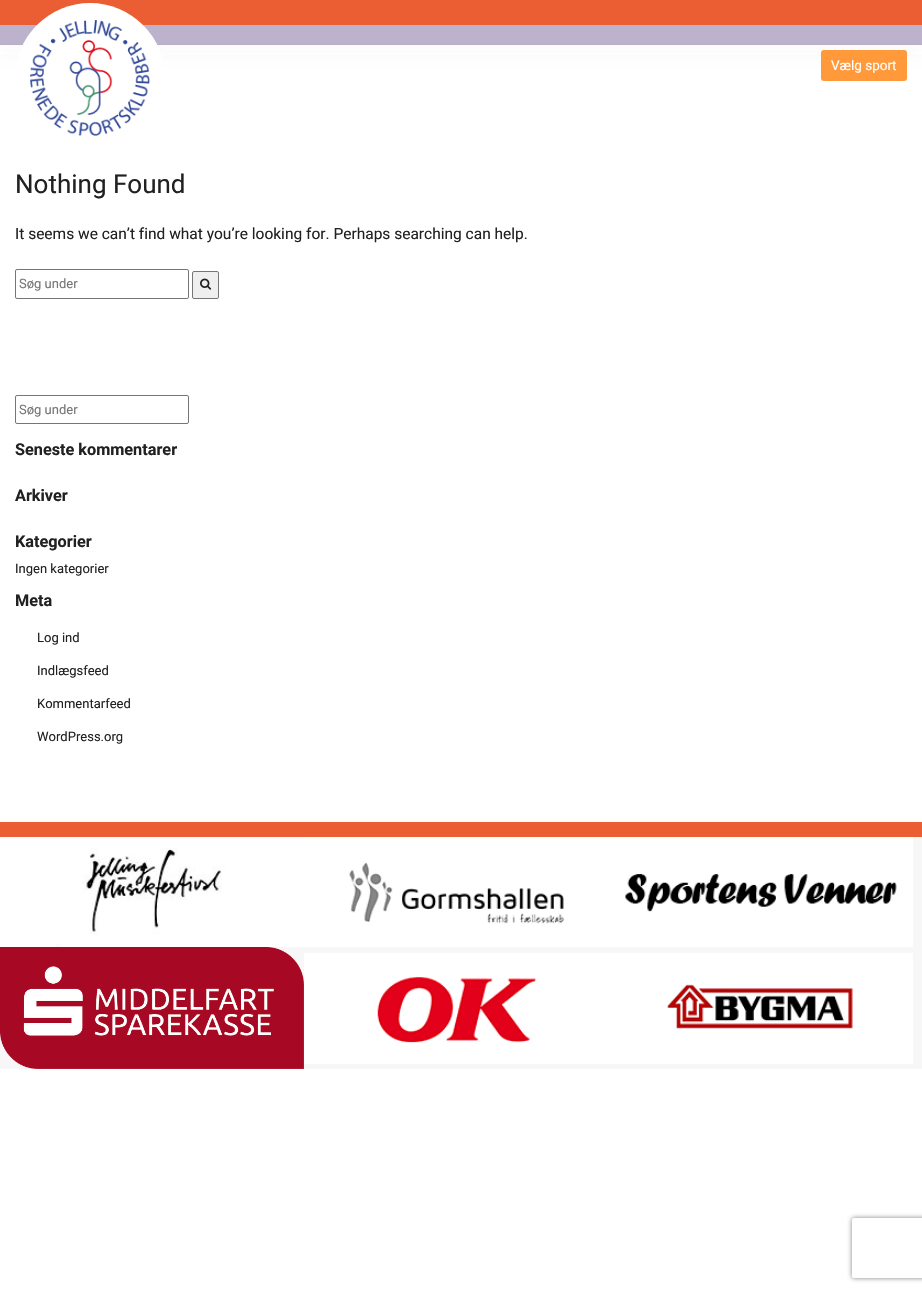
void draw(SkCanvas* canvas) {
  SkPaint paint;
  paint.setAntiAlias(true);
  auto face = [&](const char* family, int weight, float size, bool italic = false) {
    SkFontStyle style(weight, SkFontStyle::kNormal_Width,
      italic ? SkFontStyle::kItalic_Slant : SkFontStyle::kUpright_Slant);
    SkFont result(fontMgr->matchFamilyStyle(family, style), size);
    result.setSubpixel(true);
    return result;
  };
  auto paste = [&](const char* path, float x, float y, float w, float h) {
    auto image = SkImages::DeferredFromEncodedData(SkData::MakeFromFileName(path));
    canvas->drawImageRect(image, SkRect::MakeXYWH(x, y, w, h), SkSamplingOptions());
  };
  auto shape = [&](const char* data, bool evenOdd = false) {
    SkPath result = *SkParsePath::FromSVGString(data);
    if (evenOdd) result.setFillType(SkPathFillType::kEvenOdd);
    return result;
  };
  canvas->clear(0xffffffff);
  paint.setColor(0x0d000000);
  paint.setMaskFilter(SkMaskFilter::MakeBlur(kNormal_SkBlurStyle, 7));
  canvas->drawRect(SkRect::MakeXYWH(0, 32, 922, 20), paint);
  paint.setMaskFilter(nullptr);
  {
    const struct { float x, y, w, h; SkColor color; } items[] = {
      {0, 0, 922, 25, 0xffeb5e33},
      {0, 25, 922, 19, 0xff563d7c},
      {0, 44, 922, 1, 0xff4d3770},
      {0, 25, 922, 30, 0x99ffffff},
    };
    for (auto [x, y, w, h, color] : items) {
      paint.setColor(color);
      canvas->drawRect(SkRect::MakeXYWH(x, y, w, h), paint);
    }
  }
  paint.setColor(0xffffffff);
  canvas->drawCircle(90, 78, 75, paint);
  paste("img/1.png", 30, 20, 120, 116);
  paint.setColor(0xffff993a);
  canvas->drawRoundRect(SkRect::MakeXYWH(821, 50, 86, 31), 3, 3, paint);
  paint.setStroke(true);
  paint.setStrokeWidth(1);
  paint.setColor(0xff767676);
  canvas->drawRoundRect(SkRect::MakeXYWH(15.5f, 269.5f, 173, 29), 1.5f, 1.5f, paint);
  paint.setStroke(false);
  paint.setColor(0xffefefef);
  canvas->drawRoundRect(SkRect::MakeXYWH(192.5f, 271.5f, 26, 27), 1.5f, 1.5f, paint);
  paint.setStroke(true);
  paint.setColor(0xff767676);
  canvas->drawRoundRect(SkRect::MakeXYWH(192.5f, 271.5f, 26, 27), 1.5f, 1.5f, paint);
  paste("img/2.png", 200, 278, 12, 12);
  canvas->drawRoundRect(SkRect::MakeXYWH(15.5f, 395.5f, 173, 28), 1.5f, 1.5f, paint);
  paint.setStroke(false);
  paint.setColor(0xfff7f7f7);
  canvas->drawRect(SkRect::MakeXYWH(0, 837, 922, 232), paint);
  paint.setColor(0xffeb5e33);
  canvas->drawRect(SkRect::MakeXYWH(0, 822, 922, 15), paint);
  paste("img/3.png", 0, 837, 304, 110);
  paste("img/4.png", 304, 837, 305, 110);
  paste("img/5.png", 609, 837, 304, 110);
  paste("img/6.png", 0, 947, 304, 122);
  paste("img/7.png", 304, 953, 305, 111);
  paste("img/8.png", 609, 953, 304, 111);
  canvas->save();
  canvas->clipPath(shape("M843 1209H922V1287H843ZM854 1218H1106C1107 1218 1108 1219 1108 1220V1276C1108 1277 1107 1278 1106 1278H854C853 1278 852 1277 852 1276V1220C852 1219 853 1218 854 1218Z", true), true);
  paint.setColor(0xff808080);
  paint.setMaskFilter(SkMaskFilter::MakeBlur(kNormal_SkBlurStyle, 2.5f));
  canvas->drawRoundRect(SkRect::MakeXYWH(852, 1218, 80, 60), 2, 2, paint);
  paint.setMaskFilter(nullptr);
  canvas->restore();
  auto f0 = face("Roboto", 400, 13.5f);
  paint.setColor(0xffffffff);
  canvas->drawString("Vælg sport", 831, 70, f0, paint);
  auto f1 = face("Roboto", 400, 26);
  paint.setColor(0xff212121);
  canvas->drawString("Nothing Found", 15, 193, f1, paint);
  auto f2 = face("Roboto", 400, 15.5f);
  canvas->drawString("It seems we can’t find what you’re looking for. Perhaps searching can help.", 15, 239, f2, paint);
  auto f3 = face("Roboto", 400, 13);
  paint.setColor(0xff757575);
  canvas->drawString("Søg under", 19, 288, f3, paint);
  canvas->drawString("Søg under", 19, 414, f3, paint);
  auto f4 = face("Roboto", 700, 16.25f);
  paint.setColor(0xff212121);
  {
    const struct { const char* s; float x, y; } items[] = {
      {"Seneste kommentarer", 15, 455},
      {"Arkiver", 15, 501},
      {"Kategorier", 15, 547},
    };
    for (auto [s, x, y] : items) {
      canvas->drawString(s, x, y, f4, paint);
    }
  }
  canvas->drawString("Ingen kategorier", 15, 573, f3, paint);
  canvas->drawString("Meta", 15, 606, f4, paint);
  {
    const struct { const char* s; float x, y; } items[] = {
      {"Log ind", 37, 642},
      {"Indlægsfeed", 37, 675},
      {"Kommentarfeed", 37, 708},
      {"WordPress.org", 37, 741},
    };
    for (auto [s, x, y] : items) {
      canvas->drawString(s, x, y, f3, paint);
    }
  }
}
